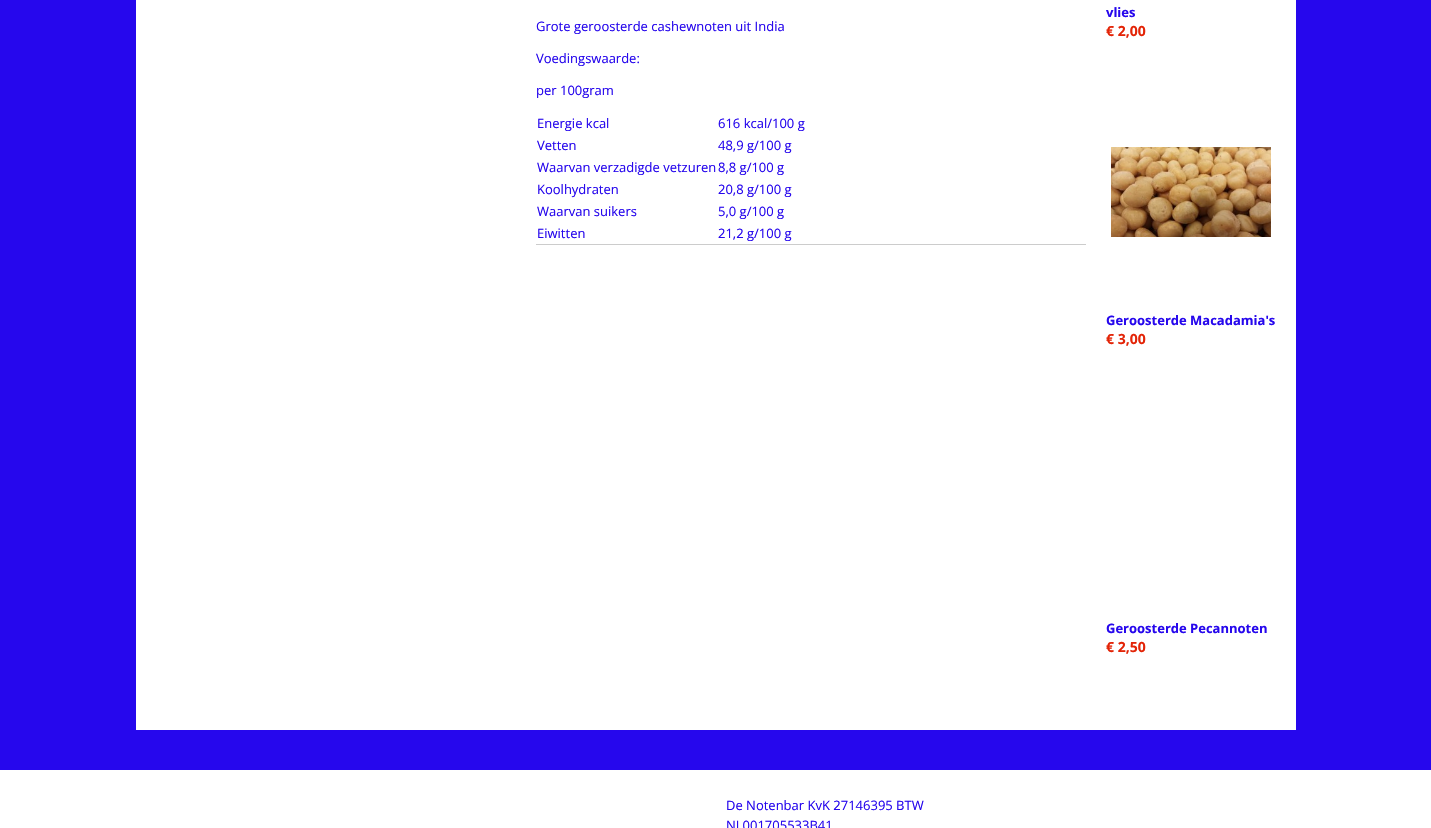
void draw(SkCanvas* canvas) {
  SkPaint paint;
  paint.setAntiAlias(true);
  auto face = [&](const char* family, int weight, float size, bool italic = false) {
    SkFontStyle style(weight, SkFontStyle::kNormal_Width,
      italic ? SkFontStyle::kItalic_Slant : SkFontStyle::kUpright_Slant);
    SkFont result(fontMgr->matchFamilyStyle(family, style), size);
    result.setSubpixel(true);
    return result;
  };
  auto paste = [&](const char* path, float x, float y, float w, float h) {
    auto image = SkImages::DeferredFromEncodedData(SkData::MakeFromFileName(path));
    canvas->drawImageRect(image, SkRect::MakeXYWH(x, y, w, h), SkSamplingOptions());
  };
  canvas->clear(0xff2607ed);
  paint.setColor(0xffffffff);
  canvas->drawRect(SkRect::MakeXYWH(136, 0, 1160, 730), paint);
  paint.setColor(0xffcccccc);
  canvas->drawRect(SkRect::MakeXYWH(536, 244, 550, 1), paint);
  paste("img/1.png", 1111, 147, 160, 90);
  paint.setColor(0xffffffff);
  canvas->drawRect(SkRect::MakeXYWH(0, 770, 1431, 58), paint);
  auto f0 = face("Open Sans", 400, 13);
  paint.setColor(0xff2607ed);
  {
    const struct { const char* s; float x, y; } items[] = {
      {"Grote geroosterde cashewnoten uit India", 536, 31},
      {"Voedingswaarde:", 536, 63},
      {"per 100gram", 536, 95},
      {"Energie kcal", 537, 128},
      {"616 kcal/100 g", 718, 128},
      {"Vetten", 537, 150},
      {"48,9 g/100 g", 718, 150},
      {"Waarvan verzadigde vetzuren", 537, 172},
      {"8,8 g/100 g", 718, 172},
      {"Koolhydraten", 537, 194},
      {"20,8 g/100 g", 718, 194},
      {"Waarvan suikers", 537, 216},
      {"5,0 g/100 g", 718, 216},
      {"Eiwitten", 537, 238},
      {"21,2 g/100 g", 718, 238},
    };
    for (auto [s, x, y] : items) {
      canvas->drawString(s, x, y, f0, paint);
    }
  }
  auto f1 = face("Open Sans", 700, 13);
  canvas->drawString("vlies", 1106, 17, f1, paint);
  auto f2 = face("Open Sans", 700, 14);
  paint.setColor(0xffe32407);
  canvas->drawString("€ 2,00", 1106, 36, f2, paint);
  paint.setColor(0xff2607ed);
  canvas->drawString("Geroosterde Macadamia's", 1106, 325, f1, paint);
  paint.setColor(0xffe32407);
  canvas->drawString("€ 3,00", 1106, 344, f2, paint);
  paint.setColor(0xff2607ed);
  canvas->drawString("Geroosterde Pecannoten", 1106, 633, f1, paint);
  paint.setColor(0xffe32407);
  canvas->drawString("€ 2,50", 1106, 652, f2, paint);
  paint.setColor(0xff2607ed);
  canvas->drawString("De Notenbar KvK 27146395 BTW", 726, 810, f0, paint);
  canvas->drawString("NL001705533B41", 726, 830, f0, paint);
}
